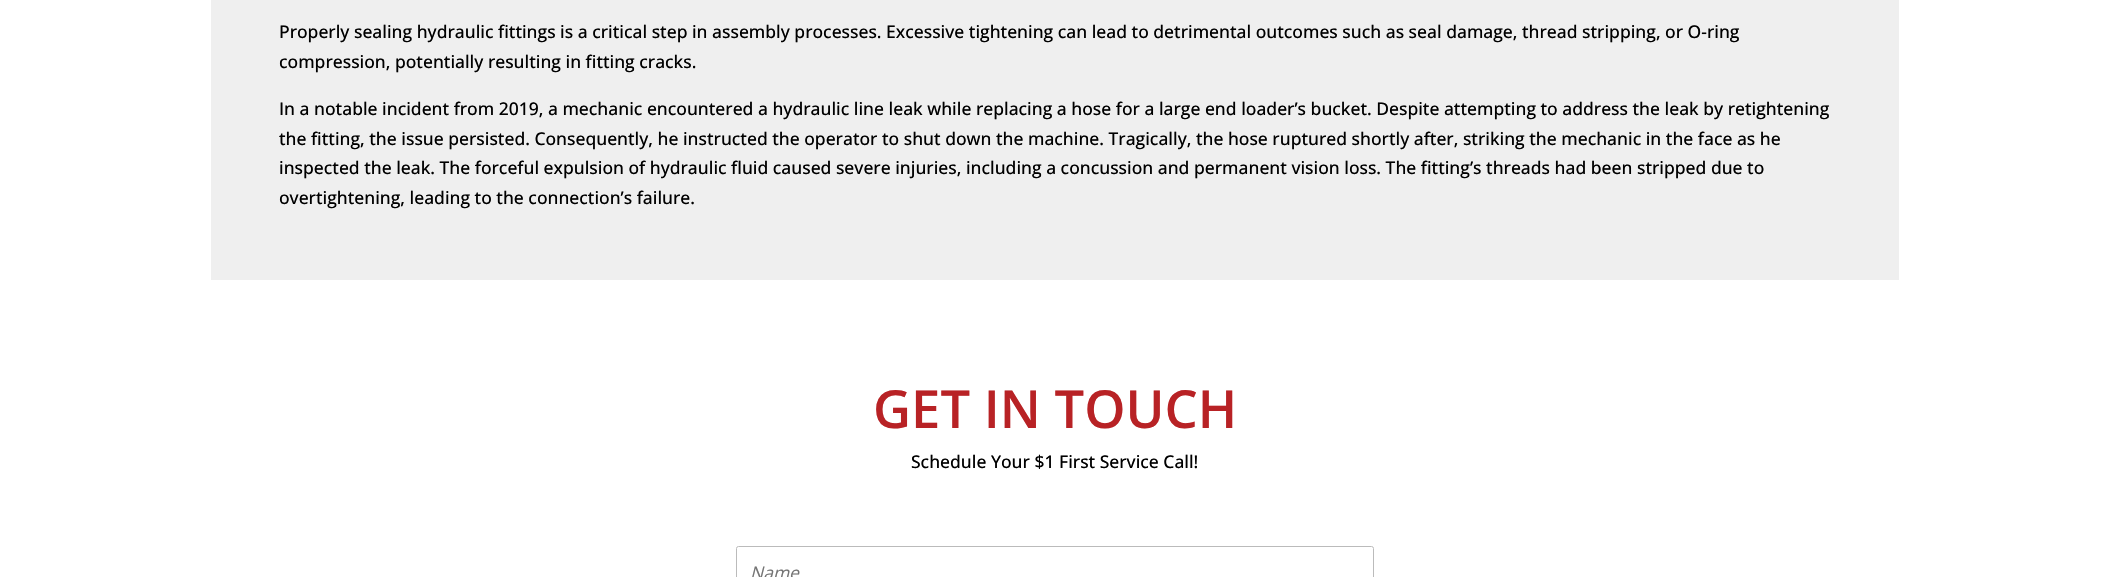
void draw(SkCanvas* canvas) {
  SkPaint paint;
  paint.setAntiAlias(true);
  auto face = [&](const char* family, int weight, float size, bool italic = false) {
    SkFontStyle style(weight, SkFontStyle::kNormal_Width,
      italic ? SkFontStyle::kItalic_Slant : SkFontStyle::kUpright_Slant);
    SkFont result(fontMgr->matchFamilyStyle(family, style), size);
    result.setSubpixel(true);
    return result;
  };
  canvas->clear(0xffffffff);
  paint.setColor(0xffefefef);
  canvas->drawRect(SkRect::MakeXYWH(211, 0, 1688, 280), paint);
  paint.setStroke(true);
  paint.setStrokeWidth(1);
  paint.setColor(0xffbbbbbb);
  canvas->drawRoundRect(SkRect::MakeXYWH(736.5f, 546.5f, 637, 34), 2, 2, paint);
  auto f0 = face("Open Sans", 500, 17.5f);
  paint.setStroke(false);
  paint.setColor(0xff000000);
  {
    const struct { const char* s; float x, y; } items[] = {
      {"Properly sealing hydraulic fittings is a critical step in assembly processes. Excessive tightening can lead to detrimental outcomes such as seal damage, thread stripping, or O-ring", 279, 38},
      {"compression, potentially resulting in fitting cracks.", 279, 68},
      {"In a notable incident from 2019, a mechanic encountered a hydraulic line leak while replacing a hose for a large end loader’s bucket. Despite attempting to address the leak by retightening", 279, 115},
      {"the fitting, the issue persisted. Consequently, he instructed the operator to shut down the machine. Tragically, the hose ruptured shortly after, striking the mechanic in the face as he", 279, 145},
      {"inspected the leak. The forceful expulsion of hydraulic fluid caused severe injuries, including a concussion and permanent vision loss. The fitting’s threads had been stripped due to", 279, 174},
      {"overtightening, leading to the connection’s failure.", 279, 204},
    };
    for (auto [s, x, y] : items) {
      canvas->drawString(s, x, y, f0, paint);
    }
  }
  auto f1 = face("Open Sans", 600, 52.5f);
  paint.setColor(0xffb82225);
  canvas->drawString("GET IN TOUCH", 873, 428, f1, paint);
  paint.setColor(0xff000000);
  canvas->drawString("Schedule Your $1 First Service Call!", 911, 468, f0, paint);
  auto f2 = face("Open Sans", 400, 17.5f, true);
  paint.setColor(0xff757575);
  canvas->drawString("Name", 750, 579, f2, paint);
}
